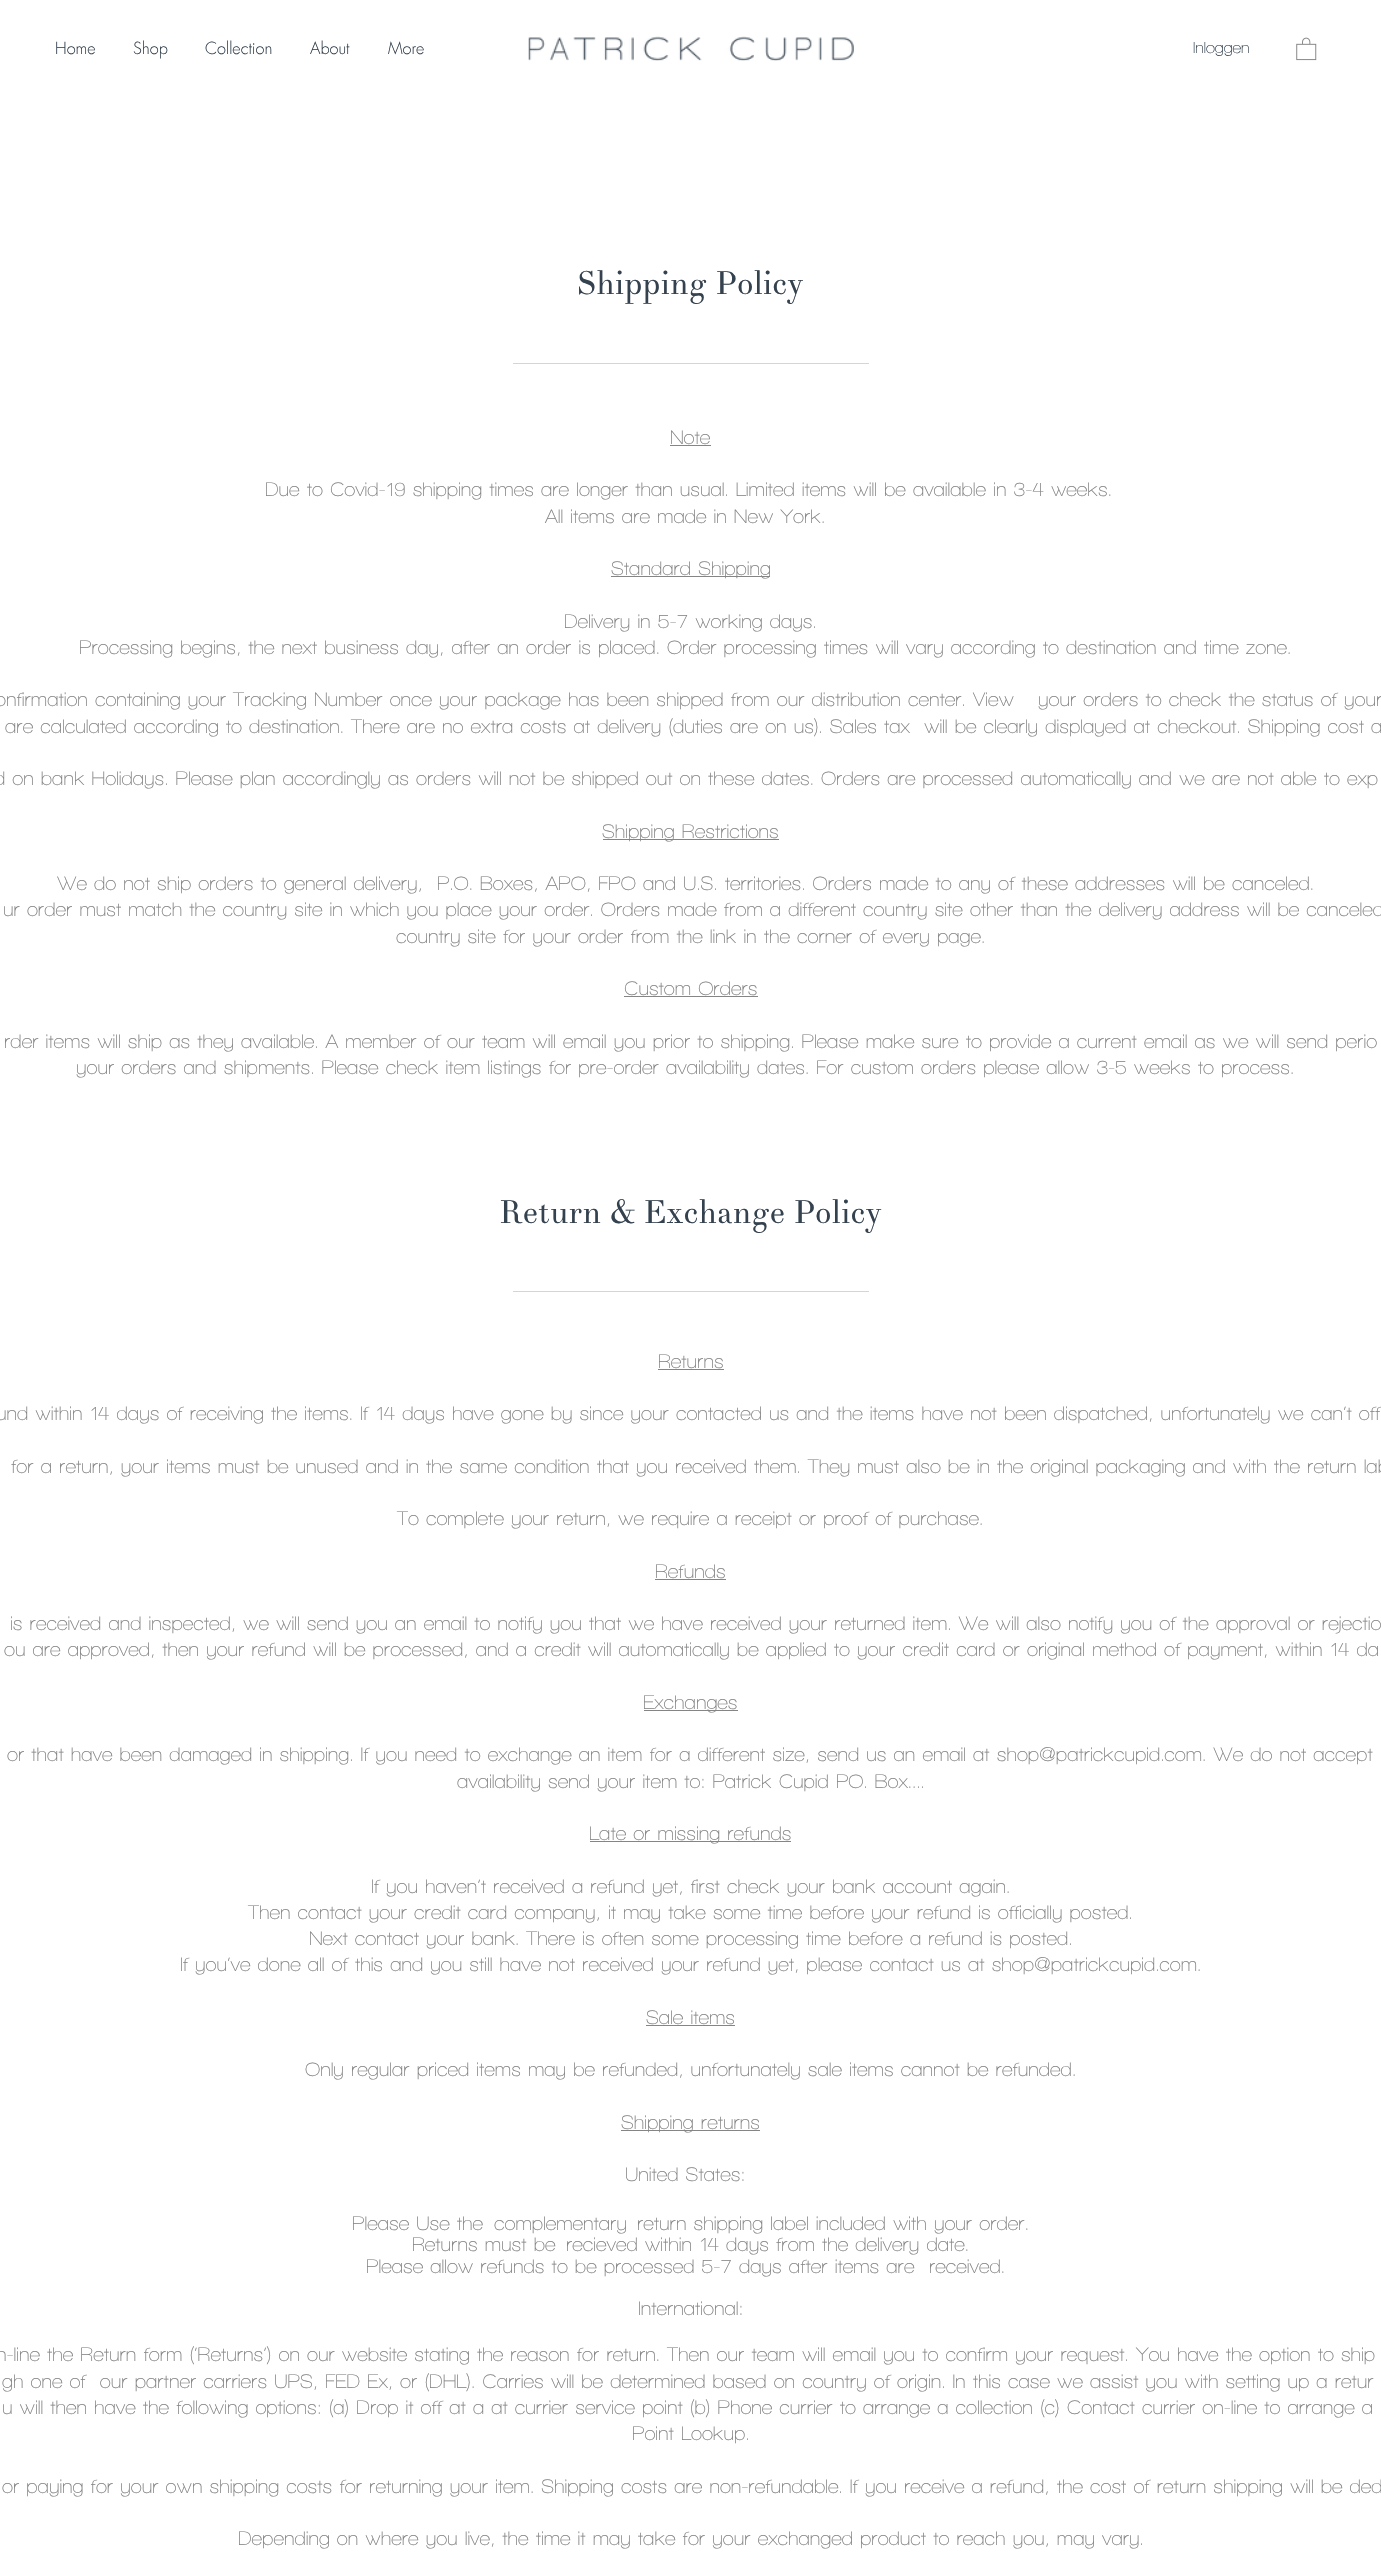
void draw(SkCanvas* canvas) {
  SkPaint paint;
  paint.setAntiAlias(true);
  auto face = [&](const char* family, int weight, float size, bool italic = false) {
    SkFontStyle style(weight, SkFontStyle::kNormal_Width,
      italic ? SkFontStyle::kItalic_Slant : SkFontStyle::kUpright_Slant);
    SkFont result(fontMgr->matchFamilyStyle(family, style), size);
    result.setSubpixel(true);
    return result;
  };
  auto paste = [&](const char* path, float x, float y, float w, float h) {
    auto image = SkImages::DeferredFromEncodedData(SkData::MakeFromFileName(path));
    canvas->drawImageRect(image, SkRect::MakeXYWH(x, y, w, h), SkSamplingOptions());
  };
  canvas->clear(0xffffffff);
  paste("img/1.png", 528, 36, 326, 25);
  paste("img/2.png", 1296, 37, 21, 24);
  {
    const struct { float x, y, w, h; SkColor color; } items[] = {
      {513, 363, 356, 1, 0xffd5d5d5},
      {670, 445, 41, 1, 0xff858585},
      {611, 576, 159, 1, 0xff858585},
      {603, 839, 176, 1, 0xff858585},
      {624, 996, 134, 1, 0xff858585},
      {513, 1291, 356, 1, 0xffd5d5d5},
      {658, 1369, 66, 1, 0xff858585},
      {655, 1579, 71, 1, 0xff858585},
      {644, 1710, 94, 1, 0xff858585},
      {590, 1841, 201, 1, 0xff858585},
      {646, 2025, 89, 1, 0xff858585},
      {621, 2130, 139, 1, 0xff858585},
    };
    for (auto [x, y, w, h, color] : items) {
      paint.setColor(color);
      canvas->drawRect(SkRect::MakeXYWH(x, y, w, h), paint);
    }
  }
  auto f0 = face("futura", 300, 16.25f);
  paint.setColor(0xff34414e);
  {
    const struct { const char* s; float x, y; } items[] = {
      {"Home", 55, 54},
      {"Shop", 133, 54},
      {"Collection", 205, 54},
      {"About", 310, 54},
      {"More", 388, 54},
    };
    for (auto [s, x, y] : items) {
      canvas->drawString(s, x, y, f0, paint);
    }
  }
  auto f1 = face("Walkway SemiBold", 600, 16.25f);
  canvas->drawString("Inloggen", 1193, 53, f1, paint);
  auto f2 = face("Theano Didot", 400, 32.5f);
  canvas->drawString("Shipping Policy", 576, 294, f2, paint);
  auto f3 = face("Walkway SemiBold", 600, 20);
  paint.setColor(0xff858585);
  {
    const struct { const char* s; float x, y; } items[] = {
      {"Note", 670, 444},
      {"Due to Covid-19 shipping times are longer than usual. Limited items will be available in 3-4 weeks.", 265, 496},
      {"All items are made in New York.", 545, 523},
      {"Standard Shipping", 611, 575},
      {"Delivery in 5-7 working days.", 564, 628},
      {"Processing begins, the next business day, after an order is placed. Order processing times will vary according to destination and time zone.", 79, 654},
      {"onfirmation containing your Tracking Number once your package has been shipped from our distribution center. View", -5, 706},
      {"your orders to check the status of your", 1038, 706},
      {"are calculated according to destination. There are no extra costs at delivery (duties are on us). Sales tax", 5, 733},
      {"will be clearly displayed at checkout. Shipping cost a", 924, 733},
      {"d on bank Holidays. Please plan accordingly as orders will not be shipped out on these dates. Orders are processed automatically and we are not able to exp", -6, 785},
      {"Shipping Restrictions", 602, 838},
      {"We do not ship orders to general delivery,", 57, 890},
      {"P.O. Boxes, APO, FPO and U.S. territories. Orders made to any of these addresses will be canceled.", 437, 890},
      {"ur order must match the country site in which you place your order. Orders made from a different country site other than the delivery address will be canceled", 3, 916},
      {"country site for your order from the link in the corner of every page.", 396, 943},
      {"Custom Orders", 624, 995},
      {"rder items will ship as they available. A member of our team will email you prior to shipping. Please make sure to provide a current email as we will send perio", 4, 1048},
      {"your orders and shipments. Please check item listings for pre-order availability dates. For custom orders please allow 3-5 weeks to process.", 76, 1074},
    };
    for (auto [s, x, y] : items) {
      canvas->drawString(s, x, y, f3, paint);
    }
  }
  paint.setColor(0xff34414e);
  canvas->drawString("Return & Exchange Policy", 499, 1223, f2, paint);
  paint.setColor(0xff858585);
  {
    const struct { const char* s; float x, y; } items[] = {
      {"Returns", 658, 1368},
      {"und within 14 days of receiving the items. If 14 days have gone by since your contacted us and the items have not been dispatched, unfortunately we can’t off", -4, 1420},
      {"for a return, your items must be unused and in the same condition that you received them. They must also be in the original packaging and with the return lab", 11, 1473},
      {"To complete your return, we require a receipt or proof of purchase.", 397, 1525},
      {"Refunds", 655, 1578},
      {"is received and inspected, we will send you an email to notify you that we have received your returned item. We will also notify you of the approval or rejectio", 10, 1630},
      {"ou are approved, then your refund will be processed, and a credit will automatically be applied to your credit card or original method of payment, within 14 da", 4, 1656},
      {"Exchanges", 643, 1709},
      {"or that have been damaged in shipping. If you need to exchange an item for a different size, send us an email at shop@patrickcupid.com. We do not accept", 7, 1761},
      {"availability send your item to: Patrick Cupid PO. Box....", 457, 1788},
      {"Late or missing refunds", 589, 1840},
      {"If you haven’t received a refund yet, first check your bank account again.", 371, 1893},
      {"Then contact your credit card company, it may take some time before your refund is officially posted.", 248, 1919},
      {"Next contact your bank. There is often some processing time before a refund is posted.", 309, 1945},
      {"If you’ve done all of this and you still have not received your refund yet, please contact us at shop@patrickcupid.com.", 180, 1971},
      {"Sale items", 646, 2024},
      {"Only regular priced items may be refunded, unfortunately sale items cannot be refunded.", 305, 2076},
      {"Shipping returns", 621, 2129},
      {"United States:", 625, 2181},
      {"Please Use the", 352, 2230},
      {"complementary", 494, 2230},
      {"return shipping label included with your order.", 637, 2230},
      {"Returns must be", 412, 2251},
      {"recieved within 14 days from the delivery date.", 566, 2251},
      {"Please allow refunds to be processed 5-7 days after items are", 366, 2273},
      {"received.", 929, 2273},
      {"International:", 638, 2315},
      {"n-line the Return form (‘Returns’) on our website stating the reason for return. Then our team will email you to confirm your request. You have the option to ship", -4, 2361},
      {"gh one of  our partner carriers UPS, FED Ex, or (DHL). Carries will be determined based on country of origin. In this case we assist you with setting up a retur", 2, 2388},
      {"u will then have the following options: (a) Drop it off at a at currier service point (b) Phone currier to arrange a collection (c) Contact currier on-line to arrange a", 2, 2414},
      {"Point Lookup.", 632, 2440},
      {"or paying for your own shipping costs for returning your item. Shipping costs are non-refundable. If you receive a refund, the cost of return shipping will be ded", 2, 2493},
      {"Depending on where you live, the time it may take for your exchanged product to reach you, may vary.", 238, 2545},
    };
    for (auto [s, x, y] : items) {
      canvas->drawString(s, x, y, f3, paint);
    }
  }
}
